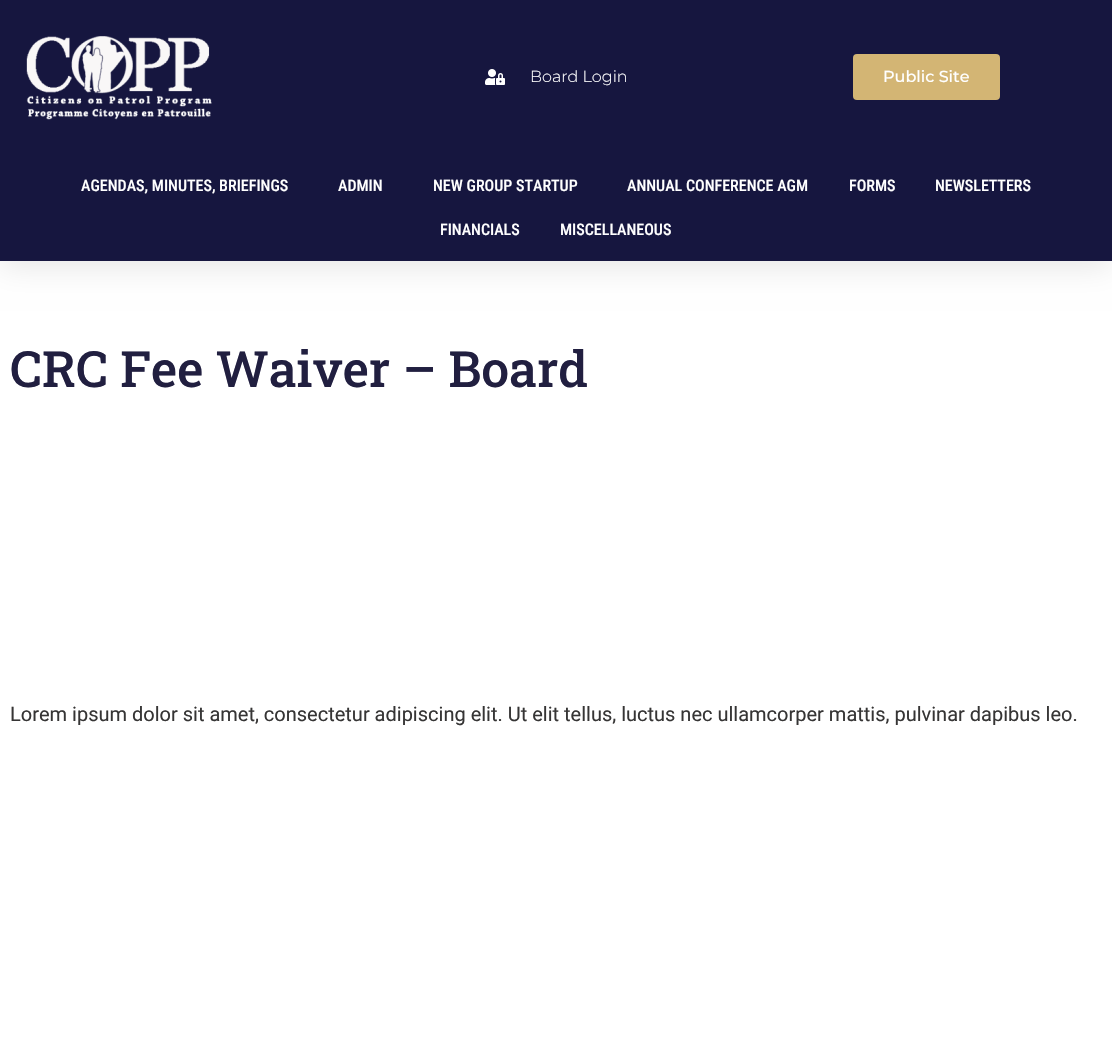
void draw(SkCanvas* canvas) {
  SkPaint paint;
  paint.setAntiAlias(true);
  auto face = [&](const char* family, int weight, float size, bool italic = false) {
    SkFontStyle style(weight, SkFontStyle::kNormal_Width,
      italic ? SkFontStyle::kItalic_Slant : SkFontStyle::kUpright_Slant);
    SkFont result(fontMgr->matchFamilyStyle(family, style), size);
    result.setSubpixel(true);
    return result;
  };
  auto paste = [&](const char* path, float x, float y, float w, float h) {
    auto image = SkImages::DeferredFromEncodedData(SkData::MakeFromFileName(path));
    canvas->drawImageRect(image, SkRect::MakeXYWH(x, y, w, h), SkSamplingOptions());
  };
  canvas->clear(0xffffffff);
  paint.setColor(0x1a000000);
  paint.setMaskFilter(SkMaskFilter::MakeBlur(kNormal_SkBlurStyle, 15));
  canvas->drawRect(SkRect::MakeXYWH(0, 5, 1112, 261), paint);
  paint.setMaskFilter(nullptr);
  paint.setColor(0xff16163f);
  canvas->drawRect(SkRect::MakeXYWH(0, 0, 1112, 261), paint);
  paste("img/1.png", 26, 36, 186, 84);
  paste("img/2.png", 485, 69, 20, 16);
  paint.setColor(0xffd3b574);
  canvas->drawRoundRect(SkRect::MakeXYWH(853, 54, 147, 46), 4, 4, paint);
  auto f0 = face("Montserrat", 300, 16);
  paint.setColor(0xffffffff);
  canvas->drawString("Board Login", 530, 82, f0, paint);
  auto f1 = face("Montserrat", 500, 16);
  canvas->drawString("Public Site", 883, 82, f1, paint);
  auto f2 = face("Roboto Condensed", 500, 16);
  {
    const struct { const char* s; float x, y; } items[] = {
      {"AGENDAS, MINUTES, BRIEFINGS", 81, 191},
      {"ADMIN", 338, 191},
      {"NEW GROUP STARTUP", 433, 191},
      {"ANNUAL CONFERENCE AGM", 627, 191},
      {"FORMS", 849, 191},
      {"NEWSLETTERS", 935, 191},
      {"FINANCIALS", 440, 235},
      {"MISCELLANEOUS", 560, 235},
    };
    for (auto [s, x, y] : items) {
      canvas->drawString(s, x, y, f2, paint);
    }
  }
  auto f3 = face("Roboto Slab", 500, 50);
  paint.setColor(0xff211f40);
  canvas->drawString("CRC Fee Waiver – Board", 10, 387, f3, paint);
  auto f4 = face("Roboto", 400, 20);
  paint.setColor(0xff363535);
  canvas->drawString("Lorem ipsum dolor sit amet, consectetur adipiscing elit. Ut elit tellus, luctus nec ullamcorper mattis, pulvinar dapibus leo.", 10, 721, f4, paint);
}
